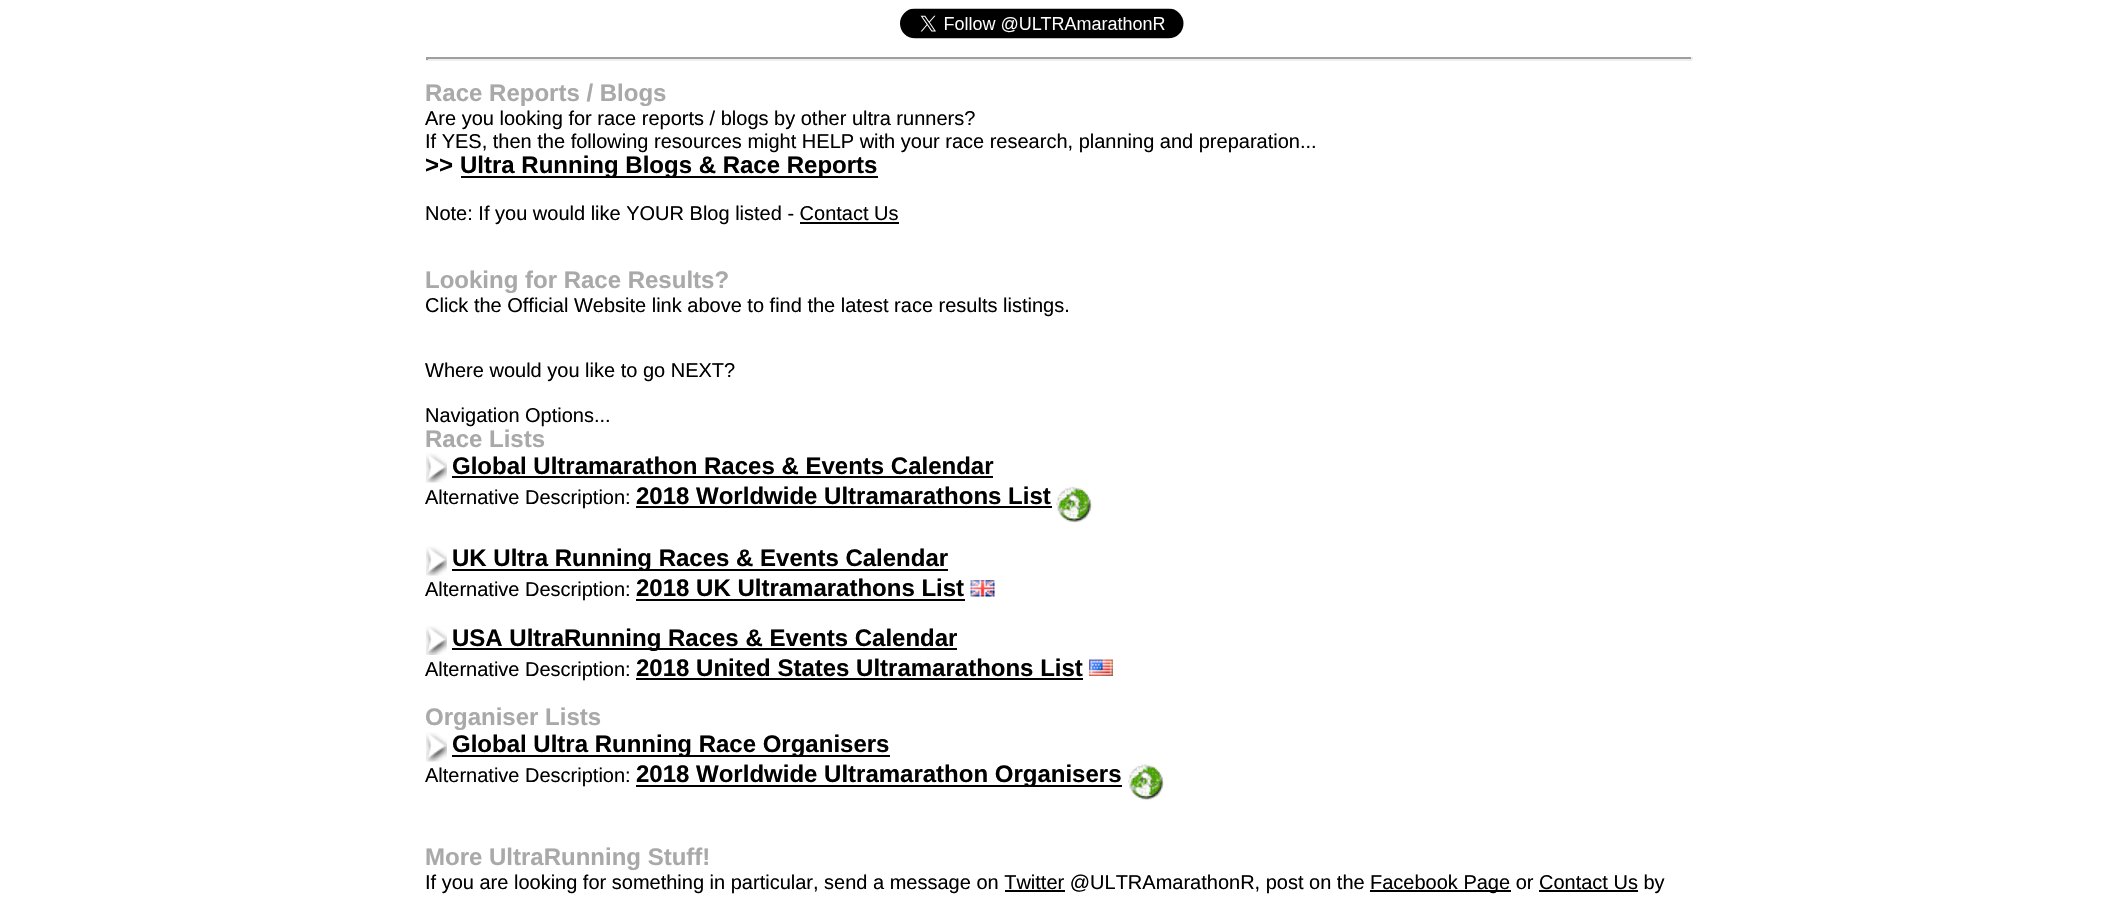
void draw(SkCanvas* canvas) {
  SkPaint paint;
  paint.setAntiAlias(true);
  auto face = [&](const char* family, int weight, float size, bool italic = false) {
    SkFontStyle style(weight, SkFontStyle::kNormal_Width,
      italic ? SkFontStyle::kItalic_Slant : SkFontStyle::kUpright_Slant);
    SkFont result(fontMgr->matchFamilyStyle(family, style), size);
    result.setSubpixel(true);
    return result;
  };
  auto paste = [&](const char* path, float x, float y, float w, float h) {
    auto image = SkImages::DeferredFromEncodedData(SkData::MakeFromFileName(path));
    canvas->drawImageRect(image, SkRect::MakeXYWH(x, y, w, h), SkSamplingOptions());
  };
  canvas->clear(0xffffffff);
  paste("img/1.png", 900, 8, 284, 31);
  {
    const struct { float x, y, w, h; SkColor color; } items[] = {
      {426, 57, 1266, 2, 0xff9f9f9f},
      {1691, 57, 2, 3, 0xffeeeeee},
      {426, 59, 1266, 2, 0xffeeeeee},
      {426, 57, 2, 3, 0xff9f9f9f},
      {461, 176, 417, 2, 0xff000000},
      {800, 222, 99, 2, 0xff000000},
    };
    for (auto [x, y, w, h, color] : items) {
      paint.setColor(color);
      canvas->drawRect(SkRect::MakeXYWH(x, y, w, h), paint);
    }
  }
  paste("img/2.png", 426, 453, 21, 30);
  canvas->drawRect(SkRect::MakeXYWH(452, 476, 541, 2), paint);
  canvas->drawRect(SkRect::MakeXYWH(636, 506, 416, 2), paint);
  paste("img/3.png", 1056, 486, 37, 37);
  paste("img/2.png", 426, 546, 21, 30);
  canvas->drawRect(SkRect::MakeXYWH(452, 569, 496, 2), paint);
  canvas->drawRect(SkRect::MakeXYWH(636, 599, 329, 2), paint);
  paste("img/4.png", 970, 580, 25, 17);
  paste("img/5.png", 426, 626, 21, 29);
  canvas->drawRect(SkRect::MakeXYWH(452, 648, 505, 2), paint);
  canvas->drawRect(SkRect::MakeXYWH(636, 678, 447, 2), paint);
  paste("img/6.png", 1089, 659, 24, 17);
  paste("img/2.png", 426, 732, 21, 30);
  canvas->drawRect(SkRect::MakeXYWH(452, 755, 438, 2), paint);
  canvas->drawRect(SkRect::MakeXYWH(636, 785, 486, 2), paint);
  paste("img/7.png", 1128, 764, 37, 37);
  {
    const struct { float x, y, w, h; SkColor color; } items[] = {
      {1370, 890, 141, 2, 0xff000000},
      {1005, 890, 60, 2, 0xff000000},
      {1539, 890, 99, 2, 0xff000000},
    };
    for (auto [x, y, w, h, color] : items) {
      paint.setColor(color);
      canvas->drawRect(SkRect::MakeXYWH(x, y, w, h), paint);
    }
  }
  auto f0 = face("Liberation Sans", 700, 24);
  paint.setColor(0xffa9a9a9);
  canvas->drawString("Race Reports / Blogs", 425, 101, f0, paint);
  auto f1 = face("Liberation Sans", 400, 20);
  paint.setColor(0xff000000);
  canvas->drawString("Are you looking for race reports / blogs by other ultra runners?", 425, 125, f1, paint);
  canvas->drawString("If YES, then the following resources might HELP with your race research, planning and preparation...", 425, 148, f1, paint);
  canvas->drawString(">>", 425, 173, f0, paint);
  canvas->drawString("Ultra Running Blogs & Race Reports", 460, 173, f0, paint);
  canvas->drawString("Note: If you would like YOUR Blog listed - Contact Us", 425, 220, f1, paint);
  paint.setColor(0xffa9a9a9);
  canvas->drawString("Looking for Race Results?", 425, 288, f0, paint);
  paint.setColor(0xff000000);
  {
    const struct { const char* s; float x, y; } items[] = {
      {"Click the Official Website link above to find the latest race results listings.", 425, 312},
      {"Where would you like to go NEXT?", 425, 377},
      {"Navigation Options...", 425, 422},
    };
    for (auto [s, x, y] : items) {
      canvas->drawString(s, x, y, f1, paint);
    }
  }
  paint.setColor(0xffa9a9a9);
  canvas->drawString("Race Lists", 425, 447, f0, paint);
  paint.setColor(0xff000000);
  canvas->drawString("Global Ultramarathon Races & Events Calendar", 452, 474, f0, paint);
  canvas->drawString("Alternative Description:", 425, 504, f1, paint);
  canvas->drawString("2018 Worldwide Ultramarathons List", 636, 504, f0, paint);
  canvas->drawString("UK Ultra Running Races & Events Calendar", 452, 566, f0, paint);
  canvas->drawString("Alternative Description:", 425, 596, f1, paint);
  canvas->drawString("2018 UK Ultramarathons List", 636, 596, f0, paint);
  canvas->drawString("USA UltraRunning Races & Events Calendar", 452, 646, f0, paint);
  canvas->drawString("Alternative Description:", 425, 676, f1, paint);
  canvas->drawString("2018 United States Ultramarathons List", 636, 676, f0, paint);
  paint.setColor(0xffa9a9a9);
  canvas->drawString("Organiser Lists", 425, 725, f0, paint);
  paint.setColor(0xff000000);
  canvas->drawString("Global Ultra Running Race Organisers", 452, 752, f0, paint);
  canvas->drawString("Alternative Description:", 425, 782, f1, paint);
  canvas->drawString("2018 Worldwide Ultramarathon Organisers", 636, 782, f0, paint);
  paint.setColor(0xffa9a9a9);
  canvas->drawString("More UltraRunning Stuff!", 425, 865, f0, paint);
  paint.setColor(0xff000000);
  canvas->drawString("If you are looking for something in particular, send a message on Twitter @ULTRAmarathonR, post on the", 425, 889, f1, paint);
  canvas->drawString("Facebook Page or Contact Us by", 1370, 889, f1, paint);
}
